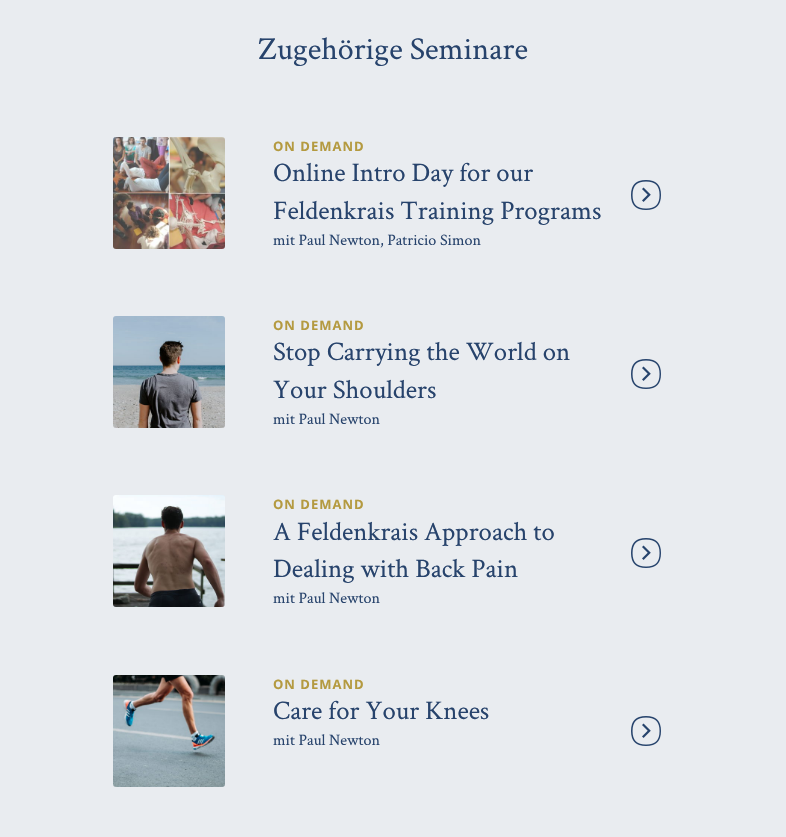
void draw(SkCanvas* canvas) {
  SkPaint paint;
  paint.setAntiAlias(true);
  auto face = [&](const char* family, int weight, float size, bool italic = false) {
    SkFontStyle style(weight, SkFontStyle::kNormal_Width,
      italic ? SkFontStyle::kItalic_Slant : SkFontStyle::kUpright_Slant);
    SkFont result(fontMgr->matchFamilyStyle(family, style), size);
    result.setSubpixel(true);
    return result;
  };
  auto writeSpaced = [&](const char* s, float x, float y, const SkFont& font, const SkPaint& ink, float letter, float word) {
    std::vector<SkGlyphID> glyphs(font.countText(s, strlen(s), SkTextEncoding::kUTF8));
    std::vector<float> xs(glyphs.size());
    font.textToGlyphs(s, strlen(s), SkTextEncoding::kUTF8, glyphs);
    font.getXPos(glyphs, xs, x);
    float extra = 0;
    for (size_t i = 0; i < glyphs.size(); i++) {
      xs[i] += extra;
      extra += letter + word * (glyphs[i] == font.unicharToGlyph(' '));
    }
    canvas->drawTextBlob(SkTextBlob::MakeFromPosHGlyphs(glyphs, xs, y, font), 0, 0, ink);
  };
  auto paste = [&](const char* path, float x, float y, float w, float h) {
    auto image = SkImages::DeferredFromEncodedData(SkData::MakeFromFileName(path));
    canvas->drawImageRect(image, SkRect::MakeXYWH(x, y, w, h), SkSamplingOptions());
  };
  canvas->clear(0xffe9ecf0);
  paste("img/1.png", 631, 180, 30, 30);
  paste("img/2.png", 113, 137, 112, 112);
  paste("img/1.png", 631, 359, 30, 30);
  paste("img/3.png", 113, 316, 112, 112);
  paste("img/1.png", 631, 538, 30, 30);
  paste("img/4.png", 113, 495, 112, 112);
  paste("img/1.png", 631, 716, 30, 30);
  paste("img/5.png", 113, 675, 112, 112);
  auto f0 = face("Crimson Text", 400, 32);
  paint.setColor(0xff27436c);
  canvas->drawString("Zugehörige Seminare", 258, 59, f0, paint);
  auto f1 = face("Open Sans", 700, 13);
  paint.setColor(0xffb49a40);
  writeSpaced("ON DEMAND", 273, 151, f1, paint, 1, 0);
  auto f2 = face("Crimson Text", 400, 26.75f);
  paint.setColor(0xff27436c);
  canvas->drawString("Online Intro Day for our", 273, 181, f2, paint);
  canvas->drawString("Feldenkrais Training Programs", 273, 219, f2, paint);
  auto f3 = face("Crimson Text", 400, 16);
  canvas->drawString("mit Paul Newton, Patricio Simon", 273, 245, f3, paint);
  paint.setColor(0xffb49a40);
  writeSpaced("ON DEMAND", 273, 330, f1, paint, 1, 0);
  paint.setColor(0xff27436c);
  canvas->drawString("Stop Carrying the World on", 273, 360, f2, paint);
  canvas->drawString("Your Shoulders", 273, 398, f2, paint);
  canvas->drawString("mit Paul Newton", 273, 424, f3, paint);
  paint.setColor(0xffb49a40);
  writeSpaced("ON DEMAND", 273, 509, f1, paint, 1, 0);
  paint.setColor(0xff27436c);
  canvas->drawString("A Feldenkrais Approach to", 273, 540, f2, paint);
  canvas->drawString("Dealing with Back Pain", 273, 577, f2, paint);
  canvas->drawString("mit Paul Newton", 273, 603, f3, paint);
  paint.setColor(0xffb49a40);
  writeSpaced("ON DEMAND", 273, 689, f1, paint, 1, 0);
  paint.setColor(0xff27436c);
  canvas->drawString("Care for Your Knees", 273, 719, f2, paint);
  canvas->drawString("mit Paul Newton", 273, 745, f3, paint);
}
